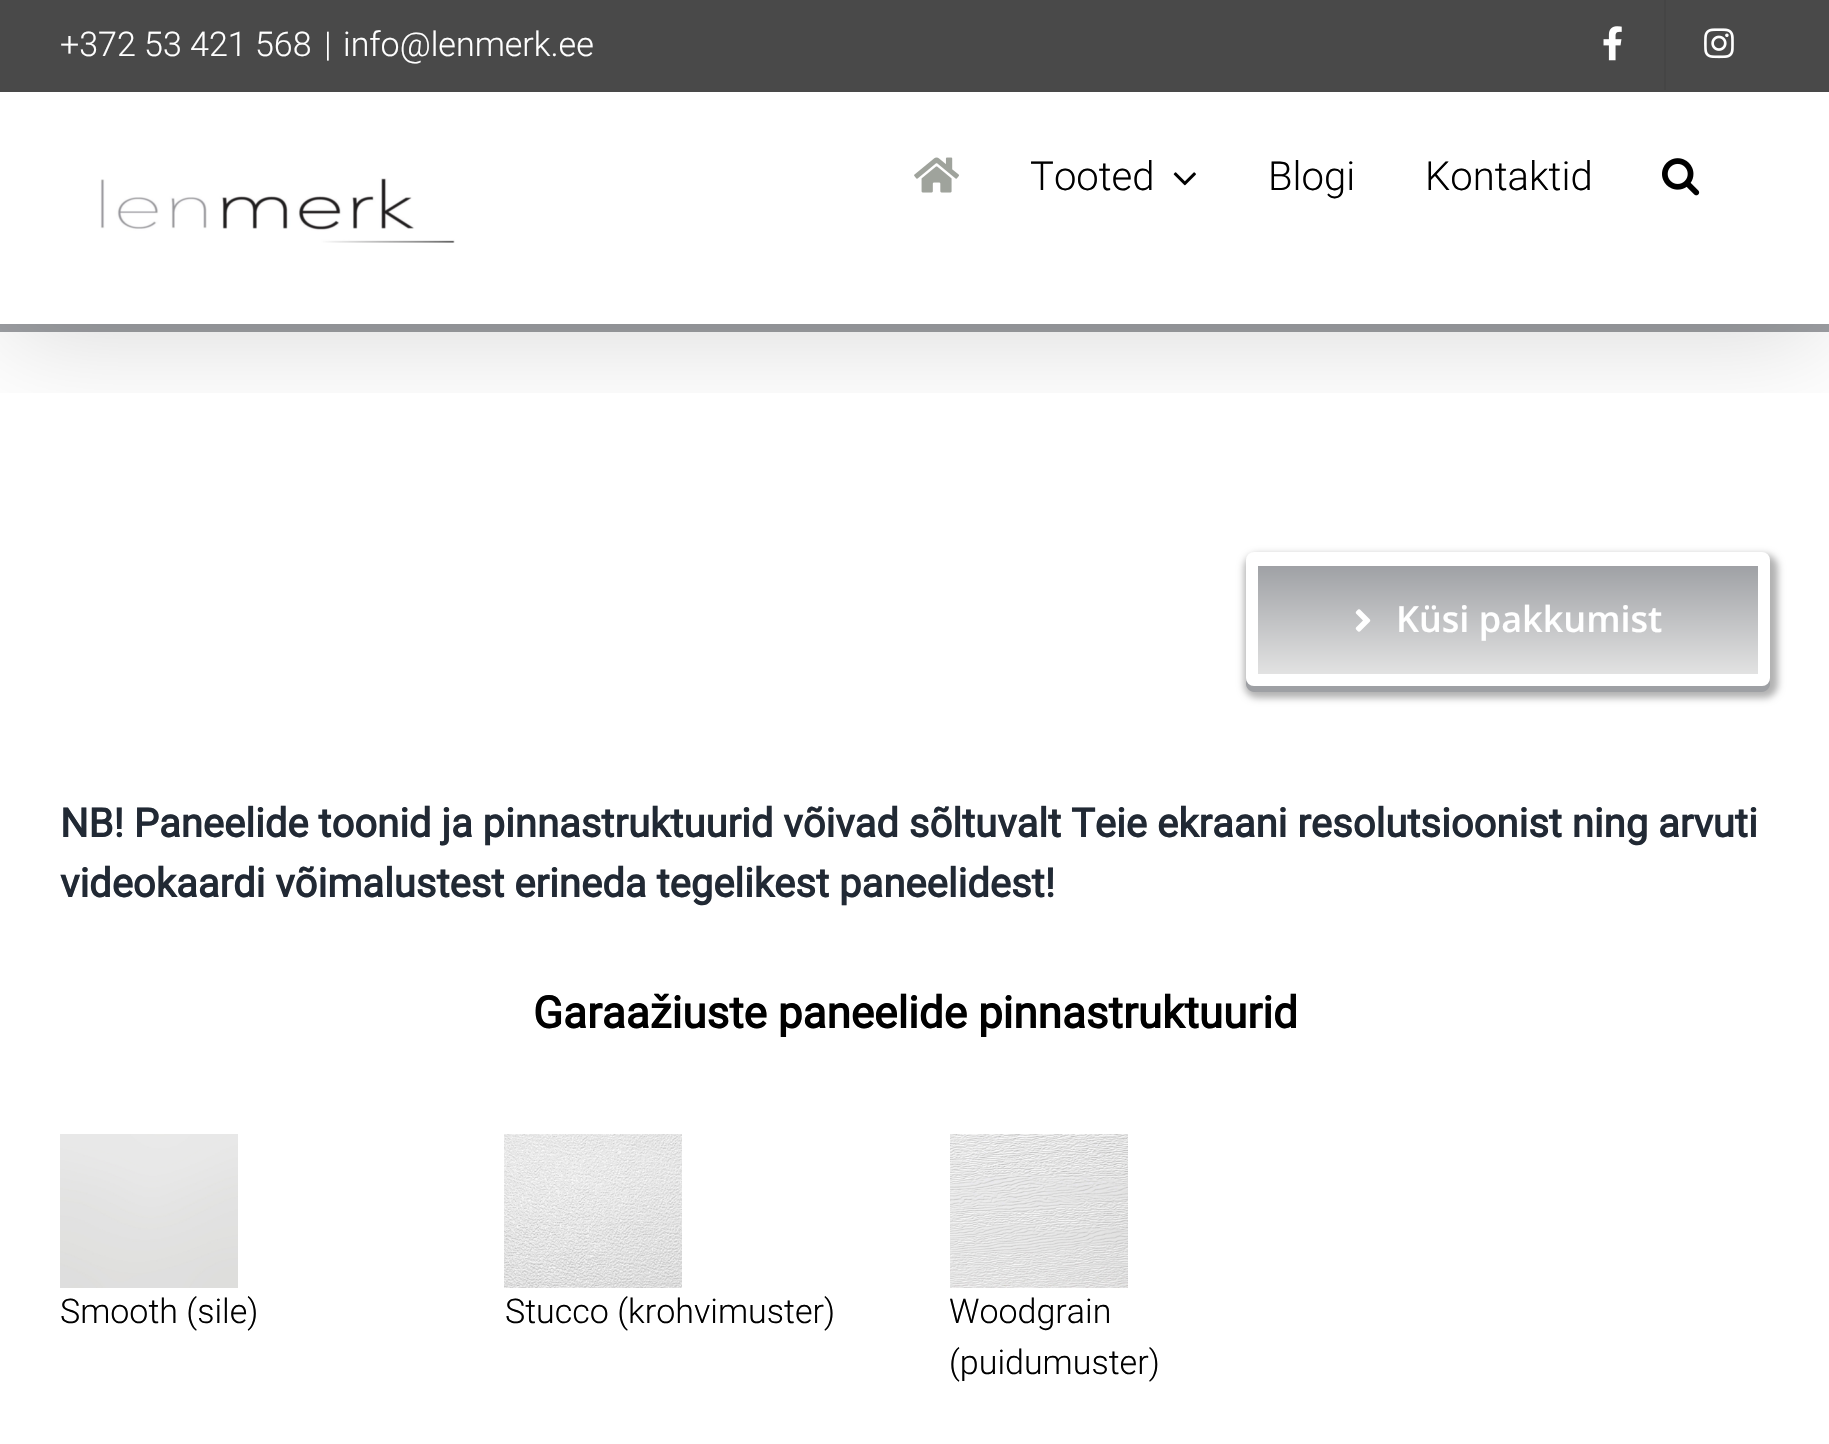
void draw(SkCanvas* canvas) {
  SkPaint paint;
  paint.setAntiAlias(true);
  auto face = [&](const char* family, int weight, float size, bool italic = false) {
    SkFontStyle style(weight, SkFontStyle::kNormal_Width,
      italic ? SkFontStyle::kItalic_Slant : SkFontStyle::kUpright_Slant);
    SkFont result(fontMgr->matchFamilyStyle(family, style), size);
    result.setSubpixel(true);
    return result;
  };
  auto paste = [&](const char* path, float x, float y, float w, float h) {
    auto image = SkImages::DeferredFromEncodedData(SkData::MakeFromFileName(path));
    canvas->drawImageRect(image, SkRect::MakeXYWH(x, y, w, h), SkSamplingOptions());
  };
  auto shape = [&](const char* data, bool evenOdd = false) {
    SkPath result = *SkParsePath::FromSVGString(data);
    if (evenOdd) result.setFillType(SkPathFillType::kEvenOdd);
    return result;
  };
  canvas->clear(0xffffffff);
  paint.setColor(0xff9ea0a4);
  canvas->drawRect(SkRect::MakeXYWH(0, 324, 1829, 8), paint);
  canvas->save();
  canvas->clipRect(SkRect::MakeXYWH(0, 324, 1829, 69));
  paint.setColor(0x24000000);
  paint.setMaskFilter(SkMaskFilter::MakeBlur(kNormal_SkBlurStyle, 50));
  canvas->drawRect(SkRect::MakeXYWH(4, 24, 1822, 316), paint);
  paint.setMaskFilter(nullptr);
  canvas->restore();
  paint.setColor(0xff494949);
  canvas->drawRect(SkRect::MakeXYWH(0, 0, 1829, 92), paint);
  paste("img/1.png", 1603, 26, 19, 35);
  paint.setColor(0xff454545);
  canvas->drawRect(SkRect::MakeXYWH(1664, 0, 2, 90), paint);
  paste("img/2.png", 1704, 28, 30, 31);
  paste("img/3.png", 100, 178, 355, 65);
  paste("img/4.png", 914, 157, 45, 36);
  paste("img/5.png", 1173, 172, 23, 14);
  paste("img/6.png", 1662, 158, 38, 38);
  paint.setColor(0x4d000000);
  paint.setMaskFilter(SkMaskFilter::MakeBlur(kNormal_SkBlurStyle, 3.5f));
  canvas->drawRoundRect(SkRect::MakeXYWH(1244, 554, 534, 144), 14, 14, paint);
  paint.setMaskFilter(nullptr);
  paint.setColor(0xff9ea0a4);
  canvas->drawPath(shape("M1246 678V684C1246 688 1250 692 1254 692H1762C1766 692 1770 688 1770 684V678C1770 682 1766 686 1762 686H1254C1250 686 1246 682 1246 678Z"), paint);
  {
    const SkColor colors[] = {0xff9ea0a4, 0xffe2e2e2};
    const float stops[] = {0, 1};
    const SkPoint ends[] = {{1508, 564}, {1508, 674}};
    paint.setShader(SkGradientShader::MakeLinear(ends, colors, stops, 2, SkTileMode::kClamp));
    paint.setAlpha(255);
  }
  canvas->drawRect(SkRect::MakeXYWH(1258, 566, 500, 108), paint);
  paint.setShader(nullptr);
  paint.setColor(0xffffffff);
  canvas->drawRect(SkRect::MakeXYWH(1258, 564, 500, 2), paint);
  paint.setStroke(true);
  paint.setStrokeWidth(12);
  canvas->drawRoundRect(SkRect::MakeXYWH(1252, 558, 512, 122), 2, 2, paint);
  paste("img/7.png", 1355, 609, 16, 23);
  paste("img/8.png", 60, 1134, 178, 154);
  paste("img/9.png", 504, 1134, 178, 154);
  paste("img/10.png", 950, 1134, 178, 154);
  auto f0 = face("Roboto", 300, 34);
  paint.setStroke(false);
  {
    const struct { const char* s; float x, y; } items[] = {
      {"+372 53 421 568", 60, 56},
      {"|", 324, 56},
      {"info@lenmerk.ee", 343, 56},
    };
    for (auto [s, x, y] : items) {
      canvas->drawString(s, x, y, f0, paint);
    }
  }
  auto f1 = face("Roboto", 300, 40);
  paint.setColor(0xff000000);
  {
    const struct { const char* s; float x, y; } items[] = {
      {"Tooted", 1030, 190},
      {"Blogi", 1268, 190},
      {"Kontaktid", 1425, 190},
    };
    for (auto [s, x, y] : items) {
      canvas->drawString(s, x, y, f1, paint);
    }
  }
  auto f2 = face("Open Sans", 600, 36);
  paint.setColor(0xffffffff);
  canvas->drawString("Küsi pakkumist", 1396, 632, f2, paint);
  auto f3 = face("Roboto", 700, 40);
  paint.setColor(0xff212934);
  canvas->drawString("NB! Paneelide toonid ja pinnastruktuurid võivad sõltuvalt Teie ekraani resolutsioonist ning arvuti", 60, 837, f3, paint);
  canvas->drawString("videokaardi võimalustest erineda tegelikest paneelidest!", 60, 897, f3, paint);
  auto f4 = face("Roboto", 700, 44);
  paint.setColor(0xff000000);
  canvas->drawString("Garaažiuste paneelide pinnastruktuurid", 533, 1028, f4, paint);
  {
    const struct { const char* s; float x, y; } items[] = {
      {"Smooth (sile)", 60, 1323},
      {"Stucco (krohvimuster)", 505, 1323},
      {"Woodgrain", 949, 1323},
      {"(puidumuster)", 949, 1374},
    };
    for (auto [s, x, y] : items) {
      canvas->drawString(s, x, y, f0, paint);
    }
  }
}
